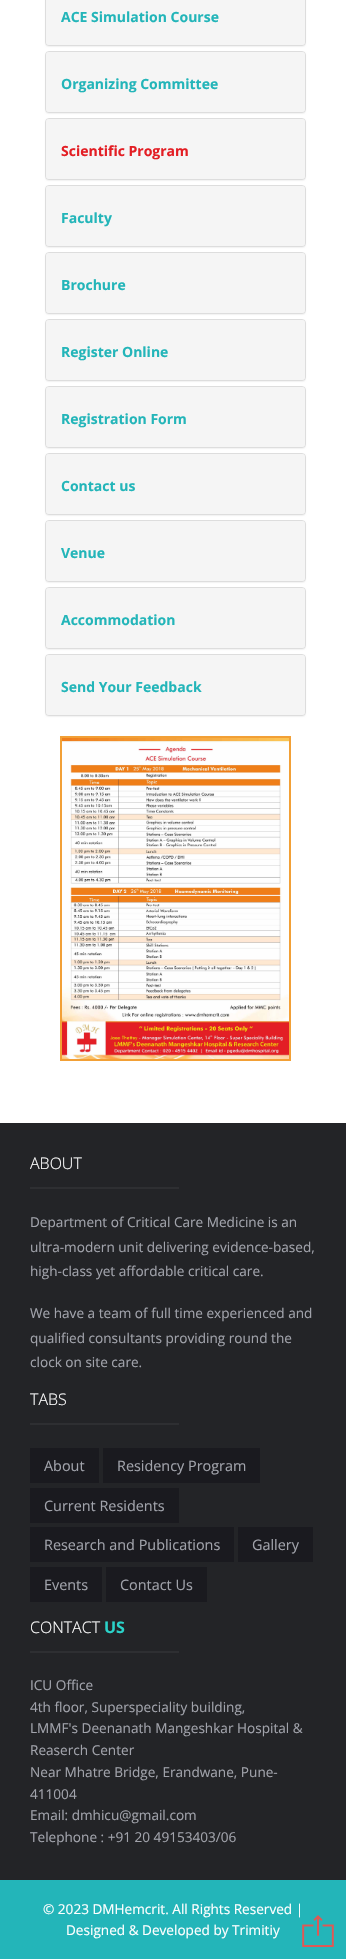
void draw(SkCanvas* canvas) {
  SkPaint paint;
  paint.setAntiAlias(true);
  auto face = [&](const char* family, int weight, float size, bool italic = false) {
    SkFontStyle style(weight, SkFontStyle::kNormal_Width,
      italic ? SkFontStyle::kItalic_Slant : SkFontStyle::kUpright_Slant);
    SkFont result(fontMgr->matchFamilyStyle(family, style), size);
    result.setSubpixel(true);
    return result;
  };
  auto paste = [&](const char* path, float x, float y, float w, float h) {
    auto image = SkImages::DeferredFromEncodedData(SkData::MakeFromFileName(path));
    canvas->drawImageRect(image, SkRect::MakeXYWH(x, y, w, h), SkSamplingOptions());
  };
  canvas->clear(0xffffffff);
  paint.setColor(0x0d000000);
  paint.setMaskFilter(SkMaskFilter::MakeBlur(kNormal_SkBlurStyle, 0.5f));
  canvas->drawRoundRect(SkRect::MakeXYWH(45, -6, 261, 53), 4, 4, paint);
  paint.setMaskFilter(nullptr);
  paint.setStroke(true);
  paint.setStrokeWidth(1);
  paint.setColor(0xffdddddd);
  canvas->drawRoundRect(SkRect::MakeXYWH(45.5f, -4.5f, 260, 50), 3.5f, 3.5f, paint);
  paint.setStroke(false);
  paint.setColor(0xfff5f5f5);
  canvas->drawRoundRect(SkRect::MakeXYWH(46, -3, 259, 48), 3, 3, paint);
  paint.setColor(0x0d000000);
  paint.setMaskFilter(SkMaskFilter::MakeBlur(kNormal_SkBlurStyle, 0.5f));
  canvas->drawRoundRect(SkRect::MakeXYWH(45, 52, 261, 62), 4, 4, paint);
  paint.setMaskFilter(nullptr);
  paint.setStroke(true);
  paint.setColor(0xffdddddd);
  canvas->drawRoundRect(SkRect::MakeXYWH(45.5f, 51.5f, 260, 61), 3.5f, 3.5f, paint);
  paint.setStroke(false);
  paint.setColor(0xfff5f5f5);
  canvas->drawRoundRect(SkRect::MakeXYWH(46, 52, 259, 60), 3, 3, paint);
  paint.setColor(0x0d000000);
  paint.setMaskFilter(SkMaskFilter::MakeBlur(kNormal_SkBlurStyle, 0.5f));
  canvas->drawRoundRect(SkRect::MakeXYWH(45, 119, 261, 62), 4, 4, paint);
  paint.setMaskFilter(nullptr);
  paint.setStroke(true);
  paint.setColor(0xffdddddd);
  canvas->drawRoundRect(SkRect::MakeXYWH(45.5f, 118.5f, 260, 61), 3.5f, 3.5f, paint);
  paint.setStroke(false);
  paint.setColor(0xfff5f5f5);
  canvas->drawRoundRect(SkRect::MakeXYWH(46, 119, 259, 60), 3, 3, paint);
  paint.setColor(0x0d000000);
  paint.setMaskFilter(SkMaskFilter::MakeBlur(kNormal_SkBlurStyle, 0.5f));
  canvas->drawRoundRect(SkRect::MakeXYWH(45, 186, 261, 62), 4, 4, paint);
  paint.setMaskFilter(nullptr);
  paint.setStroke(true);
  paint.setColor(0xffdddddd);
  canvas->drawRoundRect(SkRect::MakeXYWH(45.5f, 185.5f, 260, 61), 3.5f, 3.5f, paint);
  paint.setStroke(false);
  paint.setColor(0xfff5f5f5);
  canvas->drawRoundRect(SkRect::MakeXYWH(46, 186, 259, 60), 3, 3, paint);
  paint.setColor(0x0d000000);
  paint.setMaskFilter(SkMaskFilter::MakeBlur(kNormal_SkBlurStyle, 0.5f));
  canvas->drawRoundRect(SkRect::MakeXYWH(45, 253, 261, 62), 4, 4, paint);
  paint.setMaskFilter(nullptr);
  paint.setStroke(true);
  paint.setColor(0xffdddddd);
  canvas->drawRoundRect(SkRect::MakeXYWH(45.5f, 252.5f, 260, 61), 3.5f, 3.5f, paint);
  paint.setStroke(false);
  paint.setColor(0xfff5f5f5);
  canvas->drawRoundRect(SkRect::MakeXYWH(46, 253, 259, 60), 3, 3, paint);
  paint.setColor(0x0d000000);
  paint.setMaskFilter(SkMaskFilter::MakeBlur(kNormal_SkBlurStyle, 0.5f));
  canvas->drawRoundRect(SkRect::MakeXYWH(45, 320, 261, 62), 4, 4, paint);
  paint.setMaskFilter(nullptr);
  paint.setStroke(true);
  paint.setColor(0xffdddddd);
  canvas->drawRoundRect(SkRect::MakeXYWH(45.5f, 319.5f, 260, 61), 3.5f, 3.5f, paint);
  paint.setStroke(false);
  paint.setColor(0xfff5f5f5);
  canvas->drawRoundRect(SkRect::MakeXYWH(46, 320, 259, 60), 3, 3, paint);
  paint.setColor(0x0d000000);
  paint.setMaskFilter(SkMaskFilter::MakeBlur(kNormal_SkBlurStyle, 0.5f));
  canvas->drawRoundRect(SkRect::MakeXYWH(45, 387, 261, 62), 4, 4, paint);
  paint.setMaskFilter(nullptr);
  paint.setStroke(true);
  paint.setColor(0xffdddddd);
  canvas->drawRoundRect(SkRect::MakeXYWH(45.5f, 386.5f, 260, 61), 3.5f, 3.5f, paint);
  paint.setStroke(false);
  paint.setColor(0xfff5f5f5);
  canvas->drawRoundRect(SkRect::MakeXYWH(46, 387, 259, 60), 3, 3, paint);
  paint.setColor(0x0d000000);
  paint.setMaskFilter(SkMaskFilter::MakeBlur(kNormal_SkBlurStyle, 0.5f));
  canvas->drawRoundRect(SkRect::MakeXYWH(45, 454, 261, 62), 4, 4, paint);
  paint.setMaskFilter(nullptr);
  paint.setStroke(true);
  paint.setColor(0xffdddddd);
  canvas->drawRoundRect(SkRect::MakeXYWH(45.5f, 453.5f, 260, 61), 3.5f, 3.5f, paint);
  paint.setStroke(false);
  paint.setColor(0xfff5f5f5);
  canvas->drawRoundRect(SkRect::MakeXYWH(46, 454, 259, 60), 3, 3, paint);
  paint.setColor(0x0d000000);
  paint.setMaskFilter(SkMaskFilter::MakeBlur(kNormal_SkBlurStyle, 0.5f));
  canvas->drawRoundRect(SkRect::MakeXYWH(45, 521, 261, 62), 4, 4, paint);
  paint.setMaskFilter(nullptr);
  paint.setStroke(true);
  paint.setColor(0xffdddddd);
  canvas->drawRoundRect(SkRect::MakeXYWH(45.5f, 520.5f, 260, 61), 3.5f, 3.5f, paint);
  paint.setStroke(false);
  paint.setColor(0xfff5f5f5);
  canvas->drawRoundRect(SkRect::MakeXYWH(46, 521, 259, 60), 3, 3, paint);
  paint.setColor(0x0d000000);
  paint.setMaskFilter(SkMaskFilter::MakeBlur(kNormal_SkBlurStyle, 0.5f));
  canvas->drawRoundRect(SkRect::MakeXYWH(45, 588, 261, 62), 4, 4, paint);
  paint.setMaskFilter(nullptr);
  paint.setStroke(true);
  paint.setColor(0xffdddddd);
  canvas->drawRoundRect(SkRect::MakeXYWH(45.5f, 587.5f, 260, 61), 3.5f, 3.5f, paint);
  paint.setStroke(false);
  paint.setColor(0xfff5f5f5);
  canvas->drawRoundRect(SkRect::MakeXYWH(46, 588, 259, 60), 3, 3, paint);
  paint.setColor(0x0d000000);
  paint.setMaskFilter(SkMaskFilter::MakeBlur(kNormal_SkBlurStyle, 0.5f));
  canvas->drawRoundRect(SkRect::MakeXYWH(45, 655, 261, 62), 4, 4, paint);
  paint.setMaskFilter(nullptr);
  paint.setStroke(true);
  paint.setColor(0xffdddddd);
  canvas->drawRoundRect(SkRect::MakeXYWH(45.5f, 654.5f, 260, 61), 3.5f, 3.5f, paint);
  paint.setStroke(false);
  paint.setColor(0xfff5f5f5);
  canvas->drawRoundRect(SkRect::MakeXYWH(46, 655, 259, 60), 3, 3, paint);
  paint.setStroke(true);
  paint.setStrokeWidth(2);
  paint.setColor(0xfff2a036);
  canvas->drawRect(SkRect::MakeXYWH(61, 737, 229, 323), paint);
  paste("img/1.png", 62, 738, 227, 321);
  paint.setStroke(false);
  {
    const struct { float x, y, w, h; SkColor color; } items[] = {
      {0, 1123, 346, 757, 0xff232427},
      {30, 1187, 149, 2, 0xff2e2f32},
      {30, 1423, 149, 2, 0xff2e2f32},
      {30, 1448, 69, 35, 0xff1a1a1f},
      {103, 1448, 157, 35, 0xff1a1a1f},
      {30, 1488, 149, 35, 0xff1a1a1f},
      {30, 1527, 204, 35, 0xff1a1a1f},
      {238, 1527, 75, 35, 0xff1a1a1f},
      {30, 1567, 72, 35, 0xff1a1a1f},
      {106, 1567, 101, 35, 0xff1a1a1f},
      {30, 1651, 149, 2, 0xff2e2f32},
      {0, 1880, 346, 79, 0xff23b5b9},
    };
    for (auto [x, y, w, h, color] : items) {
      paint.setColor(color);
      canvas->drawRect(SkRect::MakeXYWH(x, y, w, h), paint);
    }
  }
  paste("img/2.png", 302, 1915, 32, 32);
  auto f0 = face("Open Sans", 700, 14);
  canvas->drawString("ACE Simulation Course", 61, 22, f0, paint);
  canvas->drawString("Organizing Committee", 61, 89, f0, paint);
  paint.setColor(0xffe31e24);
  canvas->drawString("Scientific Program", 61, 156, f0, paint);
  paint.setColor(0xff23b5b9);
  {
    const struct { const char* s; float x, y; } items[] = {
      {"Faculty", 61, 223},
      {"Brochure", 61, 290},
      {"Register Online", 61, 357},
      {"Registration Form", 61, 424},
      {"Contact us", 61, 491},
      {"Venue", 61, 558},
      {"Accommodation", 61, 625},
      {"Send Your Feedback", 61, 692},
    };
    for (auto [s, x, y] : items) {
      canvas->drawString(s, x, y, f0, paint);
    }
  }
  auto f1 = face("Open Sans", 300, 16);
  paint.setColor(0xffffffff);
  canvas->drawString("ABOUT", 30, 1169, f1, paint);
  auto f2 = face("Open Sans", 400, 13.6f);
  paint.setColor(0xffa1a3ab);
  {
    const struct { const char* s; float x, y; } items[] = {
      {"Department of Critical Care Medicine is an", 30, 1227},
      {"ultra-modern unit delivering evidence-based,", 30, 1252},
      {"high-class yet affordable critical care.", 30, 1276},
      {"We have a team of full time experienced and", 30, 1318},
      {"qualified consultants providing round the", 30, 1343},
      {"clock on site care.", 30, 1367},
    };
    for (auto [s, x, y] : items) {
      canvas->drawString(s, x, y, f2, paint);
    }
  }
  paint.setColor(0xffffffff);
  canvas->drawString("TABS", 30, 1405, f1, paint);
  auto f3 = face("Open Sans", 400, 14.4f);
  paint.setColor(0xffa1a3ab);
  {
    const struct { const char* s; float x, y; } items[] = {
      {"About", 44, 1471},
      {"Residency Program", 117, 1471},
      {"Current Residents", 44, 1511},
      {"Research and Publications", 44, 1550},
      {"Gallery", 252, 1550},
      {"Events", 44, 1590},
      {"Contact Us", 120, 1590},
    };
    for (auto [s, x, y] : items) {
      canvas->drawString(s, x, y, f3, paint);
    }
  }
  paint.setColor(0xffffffff);
  canvas->drawString("CONTACT", 30, 1633, f1, paint);
  auto f4 = face("Open Sans", 700, 16);
  paint.setColor(0xff2ad2c9);
  canvas->drawString("US", 104, 1633, f4, paint);
  paint.setColor(0xffa1a3ab);
  {
    const struct { const char* s; float x, y; } items[] = {
      {"ICU Office", 30, 1690},
      {"4th floor, Superspeciality building,", 30, 1712},
      {"LMMF's Deenanath Mangeshkar Hospital &", 30, 1733},
      {"Reaserch Center", 30, 1755},
      {"Near Mhatre Bridge, Erandwane, Pune-", 30, 1777},
      {"411004", 30, 1799},
      {"Email: dmhicu@gmail.com", 30, 1820},
      {"Telephone : +91 20 49153403/06", 30, 1842},
    };
    for (auto [s, x, y] : items) {
      canvas->drawString(s, x, y, f2, paint);
    }
  }
  paint.setColor(0xffffffff);
  canvas->drawString("© 2023 DMHemcrit. All Rights Reserved |", 43, 1914, f2, paint);
  canvas->drawString("Designed & Developed by Trimitiy", 66, 1935, f2, paint);
}
